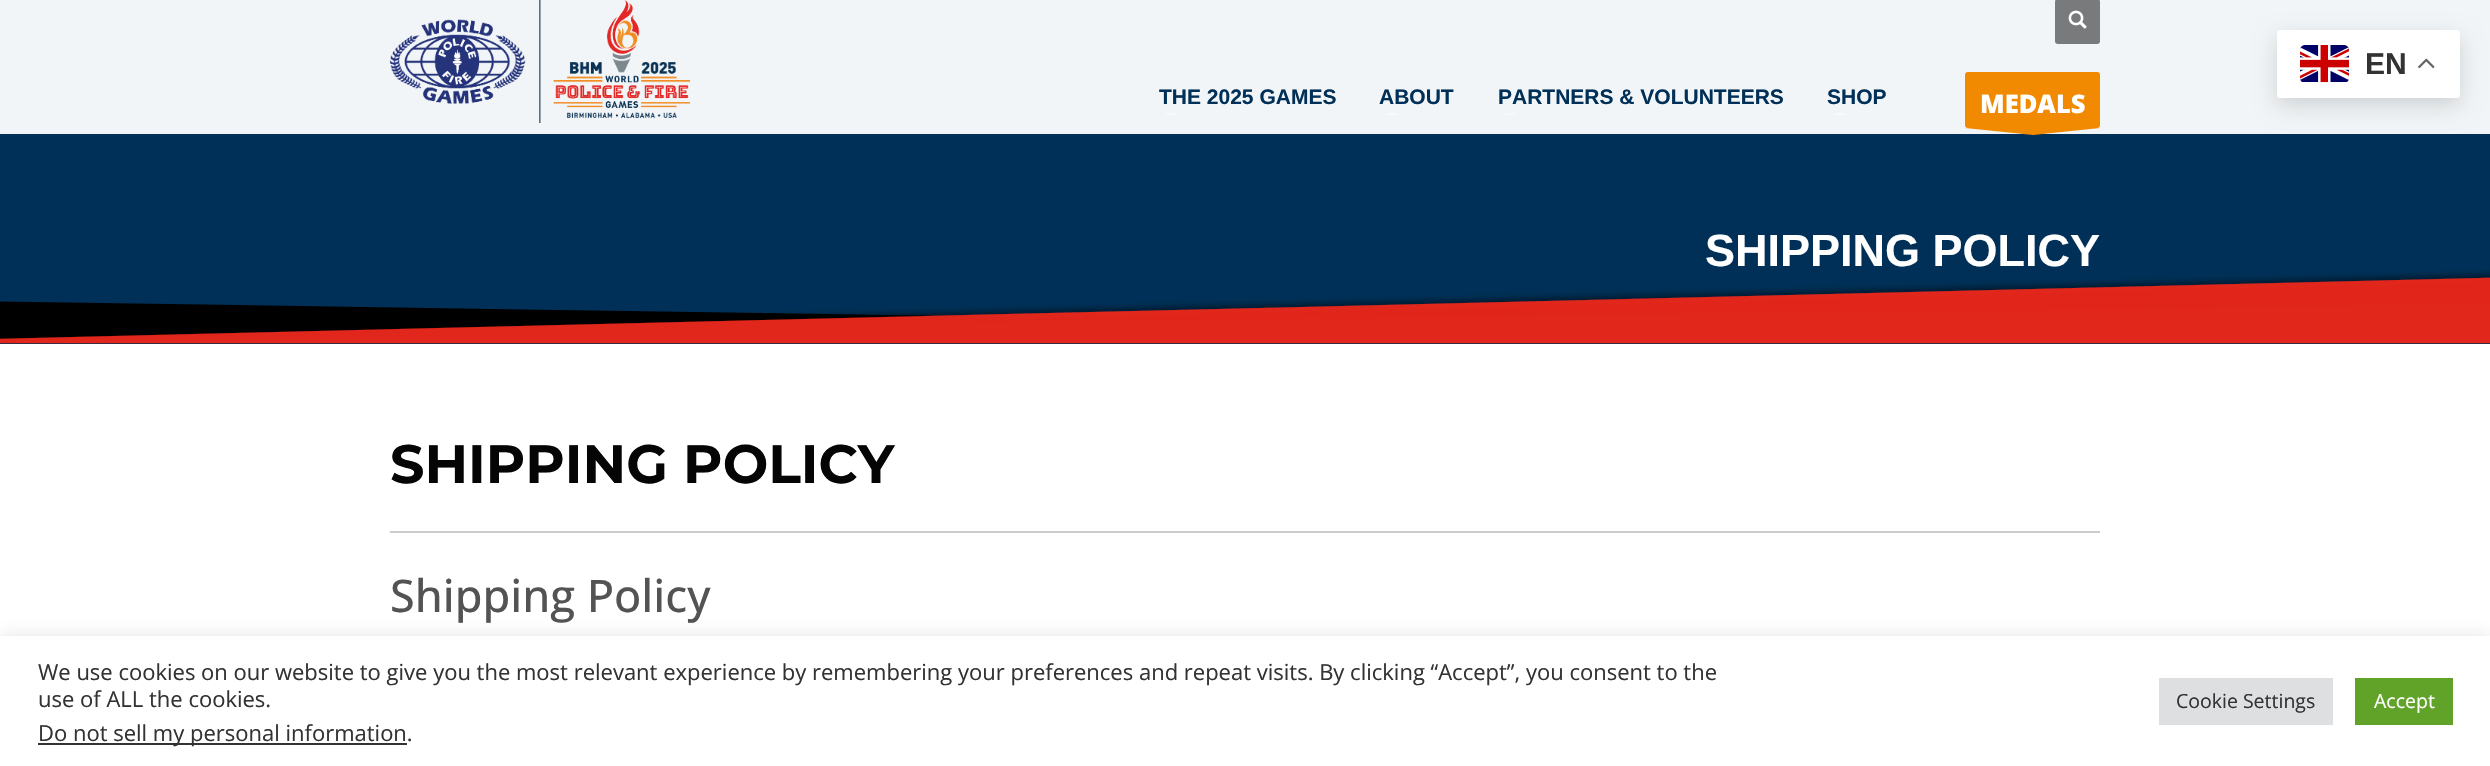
void draw(SkCanvas* canvas) {
  SkPaint paint;
  paint.setAntiAlias(true);
  auto face = [&](const char* family, int weight, float size, bool italic = false) {
    SkFontStyle style(weight, SkFontStyle::kNormal_Width,
      italic ? SkFontStyle::kItalic_Slant : SkFontStyle::kUpright_Slant);
    SkFont result(fontMgr->matchFamilyStyle(family, style), size);
    result.setSubpixel(true);
    return result;
  };
  auto paste = [&](const char* path, float x, float y, float w, float h) {
    auto image = SkImages::DeferredFromEncodedData(SkData::MakeFromFileName(path));
    canvas->drawImageRect(image, SkRect::MakeXYWH(x, y, w, h), SkSamplingOptions());
  };
  auto shape = [&](const char* data, bool evenOdd = false) {
    SkPath result = *SkParsePath::FromSVGString(data);
    if (evenOdd) result.setFillType(SkPathFillType::kEvenOdd);
    return result;
  };
  canvas->clear(0xffffffff);
  paint.setColor(0xff003057);
  canvas->drawRect(SkRect::MakeXYWH(0, 0, 2490, 344), paint);
  paint.setColor(0xf2ffffff);
  canvas->drawRect(SkRect::MakeXYWH(0, 0, 2490, 134), paint);
  paint.setColor(0x26000000);
  paint.setMaskFilter(SkMaskFilter::MakeBlur(kNormal_SkBlurStyle, 11));
  canvas->drawRoundRect(SkRect::MakeXYWH(2277, 38, 183, 67), 3, 3, paint);
  paint.setMaskFilter(nullptr);
  paint.setColor(0xffffffff);
  canvas->drawRoundRect(SkRect::MakeXYWH(2277, 30, 183, 68), 3, 3, paint);
  paste("img/1.png", 2300, 45, 49, 38);
  paste("img/2.png", 2418, 58, 17, 11);
  paste("img/3.png", 390, 0, 300, 123);
  paint.setColor(0xff797a7b);
  canvas->drawRoundRect(SkRect::MakeXYWH(2055, -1, 45, 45), 3, 3, paint);
  paste("img/4.png", 2068, 10, 19, 19);
  {
    const struct { float x, y, w, h; SkColor color; } items[] = {
      {1166, 113, 10, 2, 0xfff7f9fa},
      {1388, 113, 10, 2, 0xfff7f9fa},
      {1505, 113, 10, 2, 0xfff7f9fa},
      {1835, 113, 10, 2, 0xfff7f9fa},
    };
    for (auto [x, y, w, h, color] : items) {
      paint.setColor(color);
      canvas->drawRect(SkRect::MakeXYWH(x, y, w, h), paint);
    }
  }
  paint.setColor(0xfff18a00);
  canvas->drawRoundRect(SkRect::MakeXYWH(1965, 72, 135, 56), 3, 3, paint);
  canvas->drawPath(shape("M2100 128L2033 135L1965 128Z", true), paint);
  paste("img/5.png", 0, 270, 2490, 74);
  paint.setColor(0xffcbcbcb);
  canvas->drawRect(SkRect::MakeXYWH(390, 531, 1710, 2), paint);
  paint.setColor(0x4dacabab);
  paint.setMaskFilter(SkMaskFilter::MakeBlur(kNormal_SkBlurStyle, 7.5f));
  canvas->drawRect(SkRect::MakeXYWH(0, 635, 2490, 130), paint);
  paint.setMaskFilter(nullptr);
  {
    const struct { float x, y, w, h; SkColor color; } items[] = {
      {0, 636, 2490, 130, 0xffffffff},
      {38, 743, 369, 2, 0xff333333},
      {2159, 678, 174, 47, 0xffdedfe0},
      {2355, 678, 98, 47, 0xff61a229},
    };
    for (auto [x, y, w, h, color] : items) {
      paint.setColor(color);
      canvas->drawRect(SkRect::MakeXYWH(x, y, w, h), paint);
    }
  }
  auto f0 = face("Liberation Sans", 700, 30);
  paint.setColor(0xff333333);
  canvas->drawString("EN", 2365, 74, f0, paint);
  auto f1 = face("Liberation Sans", 700, 21);
  paint.setColor(0xff003057);
  {
    const struct { const char* s; float x, y; } items[] = {
      {"THE 2025 GAMES", 1159, 104},
      {"ABOUT", 1379, 104},
      {"PARTNERS & VOLUNTEERS", 1498, 104},
      {"SHOP", 1827, 104},
    };
    for (auto [s, x, y] : items) {
      canvas->drawString(s, x, y, f1, paint);
    }
  }
  auto f2 = face("Open Sans", 800, 25.5f);
  paint.setColor(0xffffffff);
  canvas->drawString("MEDALS", 1980, 113, f2, paint);
  auto f3 = face("Liberation Sans", 700, 45);
  canvas->drawString("SHIPPING POLICY", 1705, 266, f3, paint);
  auto f4 = face("Montserrat", 700, 54);
  paint.setColor(0xff050505);
  canvas->drawString("SHIPPING POLICY", 390, 483, f4, paint);
  auto f5 = face("Open Sans", 500, 45);
  paint.setColor(0xff535353);
  canvas->drawString("Shipping Policy", 390, 612, f5, paint);
  auto f6 = face("Open Sans", 400, 22);
  paint.setColor(0xff333333);
  {
    const struct { const char* s; float x, y; } items[] = {
      {"We use cookies on our website to give you the most relevant experience by remembering your preferences and repeat visits. By clicking “Accept”, you consent to the", 38, 680},
      {"use of ALL the cookies.", 38, 707},
      {"Do not sell my personal information.", 38, 741},
    };
    for (auto [s, x, y] : items) {
      canvas->drawString(s, x, y, f6, paint);
    }
  }
  auto f7 = face("Open Sans", 400, 19.5f);
  canvas->drawString("Cookie Settings", 2176, 708, f7, paint);
  paint.setColor(0xffffffff);
  canvas->drawString("Accept", 2374, 708, f7, paint);
}
